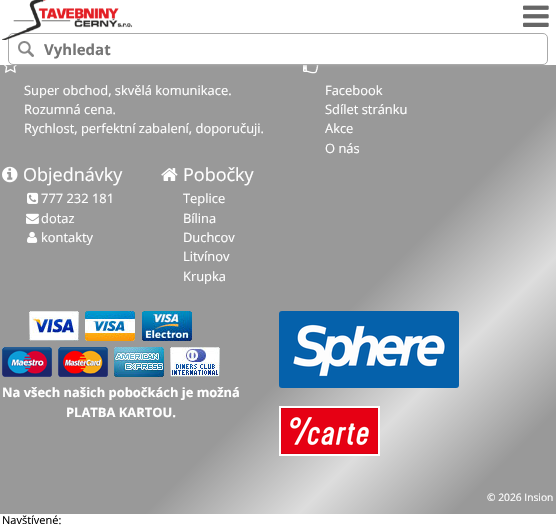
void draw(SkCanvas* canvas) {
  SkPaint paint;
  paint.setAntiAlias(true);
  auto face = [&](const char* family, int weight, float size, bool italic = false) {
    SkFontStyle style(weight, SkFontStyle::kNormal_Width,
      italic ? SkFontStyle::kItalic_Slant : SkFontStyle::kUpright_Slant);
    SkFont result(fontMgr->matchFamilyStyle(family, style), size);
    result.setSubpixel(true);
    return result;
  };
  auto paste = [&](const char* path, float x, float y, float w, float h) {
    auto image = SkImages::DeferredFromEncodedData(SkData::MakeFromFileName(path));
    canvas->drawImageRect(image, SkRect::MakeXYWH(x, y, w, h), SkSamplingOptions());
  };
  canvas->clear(0xffffffff);
  {
    const SkColor colors[] = {0xff999999, 0xffdddddd, 0xff999999};
    const float stops[] = {0.6f, 0.75f, 0.9f};
    const SkPoint ends[] = {{21, 20}, {535, 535}};
    paint.setShader(SkGradientShader::MakeLinear(ends, colors, stops, 3, SkTileMode::kClamp));
    paint.setAlpha(255);
  }
  canvas->drawRect(SkRect::MakeXYWH(0, 65, 556, 449), paint);
  paste("img/4.png", 3, 65, 14, 8);
  paste("img/5.png", 303, 65, 16, 9);
  canvas->save();
  canvas->clipRect(SkRect::MakeXYWH(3, 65, 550, 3));
  paint.setShader(nullptr);
  paint.setColor(0xffaaaaaa);
  paint.setMaskFilter(SkMaskFilter::MakeBlur(kNormal_SkBlurStyle, 1.5f));
  canvas->drawRect(SkRect::MakeXYWH(5, -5, 546, 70), paint);
  paint.setMaskFilter(nullptr);
  canvas->restore();
  paste("img/3.png", 18, 41, 16, 16);
  paint.setStroke(true);
  paint.setStrokeWidth(1);
  canvas->drawRoundRect(SkRect::MakeXYWH(8.5f, 33.5f, 539, 31), 4.5f, 4.5f, paint);
  paste("img/1.png", 2, 0, 131, 40);
  paste("img/2.png", 523, 5, 26, 22);
  paste("img/6.png", 2, 166, 16, 17);
  paste("img/7.png", 27, 192, 12, 12);
  paste("img/8.png", 26, 213, 13, 11);
  paste("img/9.png", 27, 231, 11, 12);
  paste("img/10.png", 161, 168, 17, 13);
  paste("img/11.png", 2, 311, 218, 66);
  paste("img/12.png", 279, 311, 180, 77);
  paste("img/13.png", 279, 406, 101, 50);
  auto f0 = face("Open Sans", 700, 15);
  paint.setStroke(false);
  paint.setColor(0xff757575);
  canvas->drawString("Vyhledat", 44, 55, f0, paint);
  auto f1 = face("Open Sans", 400, 12.9f);
  paint.setColor(0xffffffff);
  {
    const struct { const char* s; float x, y; } items[] = {
      {"Super obchod, skvělá komunikace.", 24, 95},
      {"Rozumná cena.", 24, 114},
      {"Rychlost, perfektní zabalení, doporučuji.", 24, 133},
      {"Facebook", 325, 95},
      {"Sdílet stránku", 325, 114},
      {"Akce", 325, 133},
      {"O nás", 325, 153},
    };
    for (auto [s, x, y] : items) {
      canvas->drawString(s, x, y, f1, paint);
    }
  }
  auto f2 = face("Open Sans", 400, 18);
  canvas->drawString("Objednávky", 23, 181, f2, paint);
  {
    const struct { const char* s; float x, y; } items[] = {
      {"777 232 181", 41, 203},
      {"dotaz", 41, 223},
      {"kontakty", 41, 242},
    };
    for (auto [s, x, y] : items) {
      canvas->drawString(s, x, y, f1, paint);
    }
  }
  canvas->drawString("Pobočky", 183, 181, f2, paint);
  {
    const struct { const char* s; float x, y; } items[] = {
      {"Teplice", 183, 203},
      {"Bílina", 183, 223},
      {"Duchcov", 183, 242},
      {"Litvínov", 183, 261},
      {"Krupka", 183, 281},
    };
    for (auto [s, x, y] : items) {
      canvas->drawString(s, x, y, f1, paint);
    }
  }
  auto f3 = face("Open Sans", 700, 12.9f);
  canvas->drawString("Na všech našich pobočkách je možná", 2, 397, f3, paint);
  canvas->drawString("PLATBA KARTOU.", 66, 417, f3, paint);
  auto f4 = face("Open Sans", 400, 10.25f);
  canvas->drawString("© 2026 Insion", 487, 501, f4, paint);
  auto f5 = face("Open Sans", 400, 11);
  paint.setColor(0xff000000);
  canvas->drawString("Navštívené:", 2, 524, f5, paint);
}
